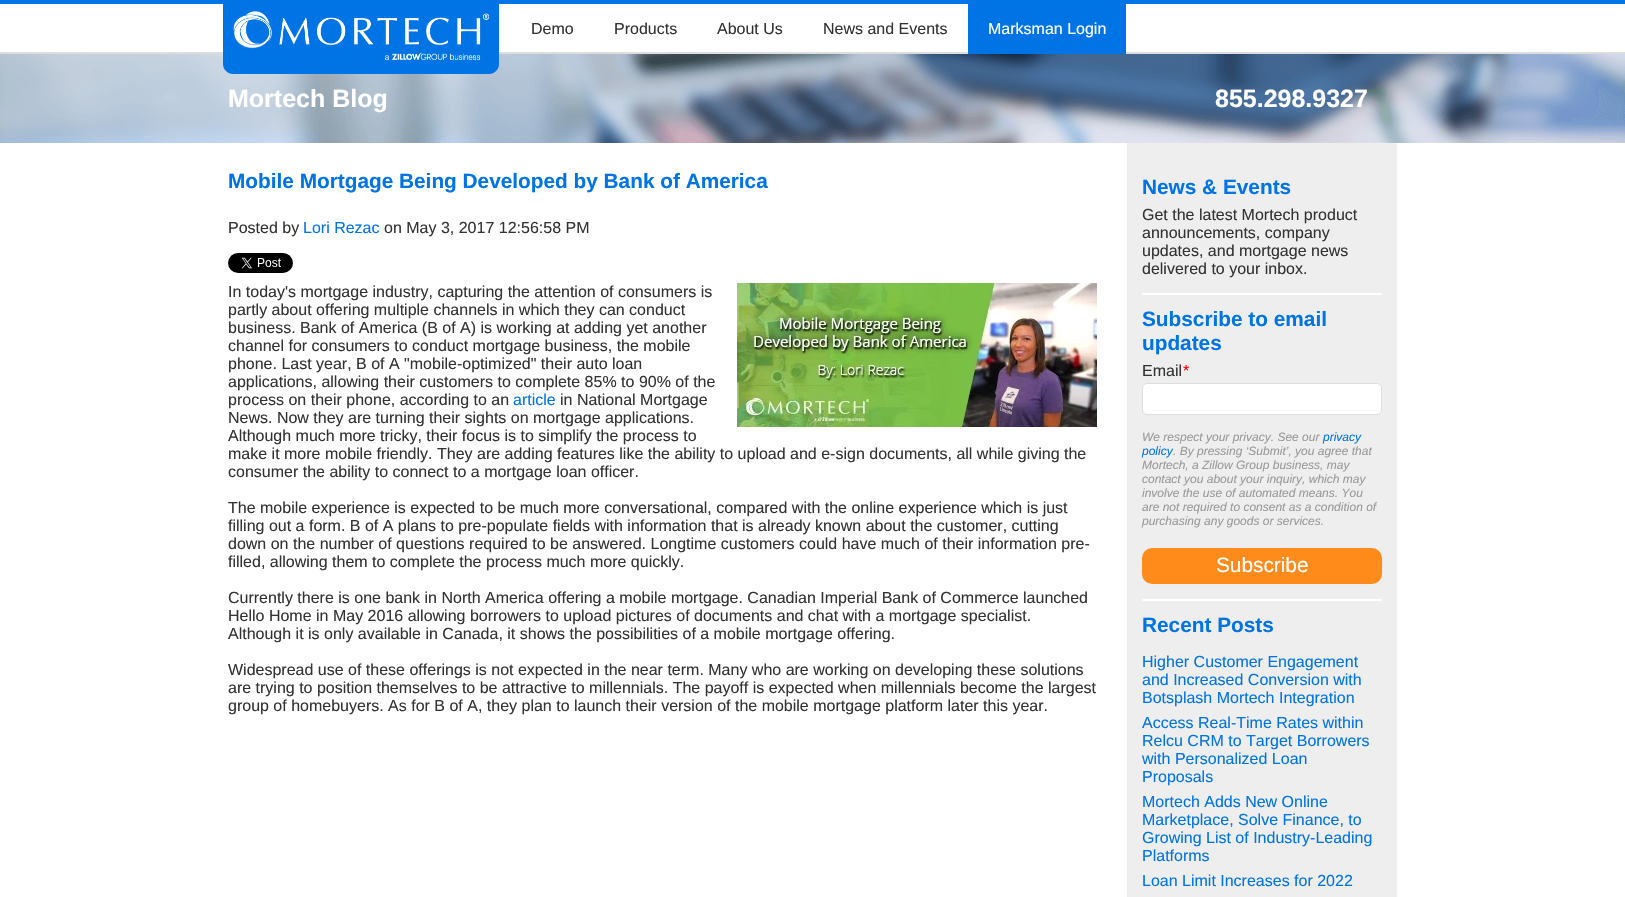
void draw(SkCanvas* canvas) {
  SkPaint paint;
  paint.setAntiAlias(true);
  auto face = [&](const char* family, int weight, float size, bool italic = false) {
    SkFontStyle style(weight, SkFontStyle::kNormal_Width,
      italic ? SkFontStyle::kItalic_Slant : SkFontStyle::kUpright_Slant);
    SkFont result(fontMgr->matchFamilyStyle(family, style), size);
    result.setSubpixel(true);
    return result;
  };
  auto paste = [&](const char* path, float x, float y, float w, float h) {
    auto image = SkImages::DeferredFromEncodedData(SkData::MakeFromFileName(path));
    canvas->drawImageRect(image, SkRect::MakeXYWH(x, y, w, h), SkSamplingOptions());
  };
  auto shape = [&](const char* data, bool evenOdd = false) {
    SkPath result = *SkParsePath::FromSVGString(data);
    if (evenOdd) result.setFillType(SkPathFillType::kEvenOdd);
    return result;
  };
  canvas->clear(0xffffffff);
  paint.setColor(0xff0074e4);
  canvas->drawRect(SkRect::MakeXYWH(0, 0, 1625, 4), paint);
  paint.setColor(0xffdddddd);
  canvas->drawRect(SkRect::MakeXYWH(0, 52, 1625, 2), paint);
  paste("img/2.png", 0, 54, 1625, 89);
  paint.setColor(0xff0074e4);
  canvas->drawPath(shape("M223 4H499V64C499 69.5 494.5 74 489 74H233C227.5 74 223 69.5 223 64Z"), paint);
  paste("img/1.png", 233, 11, 256, 49);
  canvas->drawRect(SkRect::MakeXYWH(968, 4, 158, 50), paint);
  paste("img/3.png", 228, 253, 65, 20);
  paste("img/4.png", 737, 283, 360, 144);
  {
    const struct { float x, y, w, h; SkColor color; } items[] = {
      {1127, 143, 270, 754, 0xffeeeeee},
      {1142, 293, 240, 2, 0xffffffff},
      {1142, 599, 240, 2, 0xffffffff},
    };
    for (auto [x, y, w, h, color] : items) {
      paint.setColor(color);
      canvas->drawRect(SkRect::MakeXYWH(x, y, w, h), paint);
    }
  }
  canvas->drawRoundRect(SkRect::MakeXYWH(1142.5f, 383.5f, 239, 31), 4.5f, 4.5f, paint);
  paint.setStroke(true);
  paint.setStrokeWidth(1);
  paint.setColor(0xffdddddd);
  canvas->drawRoundRect(SkRect::MakeXYWH(1142.5f, 383.5f, 239, 31), 4.5f, 4.5f, paint);
  paint.setStroke(false);
  paint.setColor(0xffff8b1b);
  canvas->drawRoundRect(SkRect::MakeXYWH(1142, 548, 240, 36), 10, 10, paint);
  auto f0 = face("Liberation Sans", 400, 16);
  paint.setColor(0xff333333);
  {
    const struct { const char* s; float x, y; } items[] = {
      {"Demo", 531, 34},
      {"Products", 614, 34},
      {"About Us", 717, 34},
      {"News and Events", 823, 34},
    };
    for (auto [s, x, y] : items) {
      canvas->drawString(s, x, y, f0, paint);
    }
  }
  paint.setColor(0xffffffff);
  canvas->drawString("Marksman Login", 988, 34, f0, paint);
  auto f1 = face("Liberation Sans", 700, 25);
  canvas->drawString("Mortech Blog", 228, 107, f1, paint);
  canvas->drawString("855.298.9327", 1215, 107, f1, paint);
  auto f2 = face("Liberation Sans", 700, 20.8f);
  paint.setColor(0xff0074e4);
  canvas->drawString("Mobile Mortgage Being Developed by Bank of America", 228, 188, f2, paint);
  paint.setColor(0xff333333);
  canvas->drawString("Posted by", 228, 233, f0, paint);
  paint.setColor(0xff0074e4);
  canvas->drawString("Lori Rezac", 303, 233, f0, paint);
  paint.setColor(0xff333333);
  {
    const struct { const char* s; float x, y; } items[] = {
      {"on May 3, 2017 12:56:58 PM", 384, 233},
      {"In today's mortgage industry, capturing the attention of consumers is", 228, 297},
      {"partly about offering multiple channels in which they can conduct", 228, 315},
      {"business. Bank of America (B of A) is working at adding yet another", 228, 333},
      {"channel for consumers to conduct mortgage business, the mobile", 228, 351},
      {"phone. Last year, B of A \"mobile-optimized\" their auto loan", 228, 369},
      {"applications, allowing their customers to complete 85% to 90% of the", 228, 387},
      {"process on their phone, according to an", 228, 405},
    };
    for (auto [s, x, y] : items) {
      canvas->drawString(s, x, y, f0, paint);
    }
  }
  paint.setColor(0xff0074e4);
  canvas->drawString("article", 513, 405, f0, paint);
  paint.setColor(0xff333333);
  {
    const struct { const char* s; float x, y; } items[] = {
      {"in National Mortgage", 560, 405},
      {"News. Now they are turning their sights on mortgage applications.", 228, 423},
      {"Although much more tricky, their focus is to simplify the process to", 228, 441},
      {"make it more mobile friendly. They are adding features like the ability to upload and e-sign documents, all while giving the", 228, 459},
      {"consumer the ability to connect to a mortgage loan officer.", 228, 477},
      {"The mobile experience is expected to be much more conversational, compared with the online experience which is just", 228, 513},
      {"filling out a form. B of A plans to pre-populate fields with information that is already known about the customer, cutting", 228, 531},
      {"down on the number of questions required to be answered. Longtime customers could have much of their information pre-", 228, 549},
      {"filled, allowing them to complete the process much more quickly.", 228, 567},
      {"Currently there is one bank in North America offering a mobile mortgage. Canadian Imperial Bank of Commerce launched", 228, 603},
      {"Hello Home in May 2016 allowing borrowers to upload pictures of documents and chat with a mortgage specialist.", 228, 621},
      {"Although it is only available in Canada, it shows the possibilities of a mobile mortgage offering.", 228, 639},
      {"Widespread use of these offerings is not expected in the near term. Many who are working on developing these solutions", 228, 675},
      {"are trying to position themselves to be attractive to millennials. The payoff is expected when millennials become the largest", 228, 693},
      {"group of homebuyers. As for B of A, they plan to launch their version of the mobile mortgage platform later this year.", 228, 711},
    };
    for (auto [s, x, y] : items) {
      canvas->drawString(s, x, y, f0, paint);
    }
  }
  paint.setColor(0xff0074e4);
  canvas->drawString("News & Events", 1142, 194, f2, paint);
  paint.setColor(0xff333333);
  {
    const struct { const char* s; float x, y; } items[] = {
      {"Get the latest Mortech product", 1142, 220},
      {"announcements, company", 1142, 238},
      {"updates, and mortgage news", 1142, 256},
      {"delivered to your inbox.", 1142, 274},
    };
    for (auto [s, x, y] : items) {
      canvas->drawString(s, x, y, f0, paint);
    }
  }
  paint.setColor(0xff0074e4);
  canvas->drawString("Subscribe to email", 1142, 326, f2, paint);
  canvas->drawString("updates", 1142, 350, f2, paint);
  paint.setColor(0xff333333);
  canvas->drawString("Email", 1142, 376, f0, paint);
  paint.setColor(0xffff0000);
  canvas->drawString("*", 1183, 376, f0, paint);
  auto f3 = face("Liberation Sans", 400, 12, true);
  paint.setColor(0xff999999);
  canvas->drawString("We respect your privacy. See our", 1142, 441, f3, paint);
  paint.setColor(0xff0074e4);
  canvas->drawString("privacy", 1323, 441, f3, paint);
  canvas->drawString("policy", 1142, 455, f3, paint);
  paint.setColor(0xff999999);
  {
    const struct { const char* s; float x, y; } items[] = {
      {". By pressing ‘Submit’, you agree that", 1173, 455},
      {"Mortech, a Zillow Group business, may", 1142, 469},
      {"contact you about your inquiry, which may", 1142, 483},
      {"involve the use of automated means. You", 1142, 497},
      {"are not required to consent as a condition of", 1142, 511},
      {"purchasing any goods or services.", 1142, 525},
    };
    for (auto [s, x, y] : items) {
      canvas->drawString(s, x, y, f3, paint);
    }
  }
  auto f4 = face("Liberation Sans", 400, 20.8f);
  paint.setColor(0xffffffff);
  canvas->drawString("Subscribe", 1216, 572, f4, paint);
  paint.setColor(0xff0074e4);
  canvas->drawString("Recent Posts", 1142, 632, f2, paint);
  {
    const struct { const char* s; float x, y; } items[] = {
      {"Higher Customer Engagement", 1142, 667},
      {"and Increased Conversion with", 1142, 685},
      {"Botsplash Mortech Integration", 1142, 703},
      {"Access Real-Time Rates within", 1142, 728},
      {"Relcu CRM to Target Borrowers", 1142, 746},
      {"with Personalized Loan", 1142, 764},
      {"Proposals", 1142, 782},
      {"Mortech Adds New Online", 1142, 807},
      {"Marketplace, Solve Finance, to", 1142, 825},
      {"Growing List of Industry-Leading", 1142, 843},
      {"Platforms", 1142, 861},
      {"Loan Limit Increases for 2022", 1142, 886},
    };
    for (auto [s, x, y] : items) {
      canvas->drawString(s, x, y, f0, paint);
    }
  }
}
